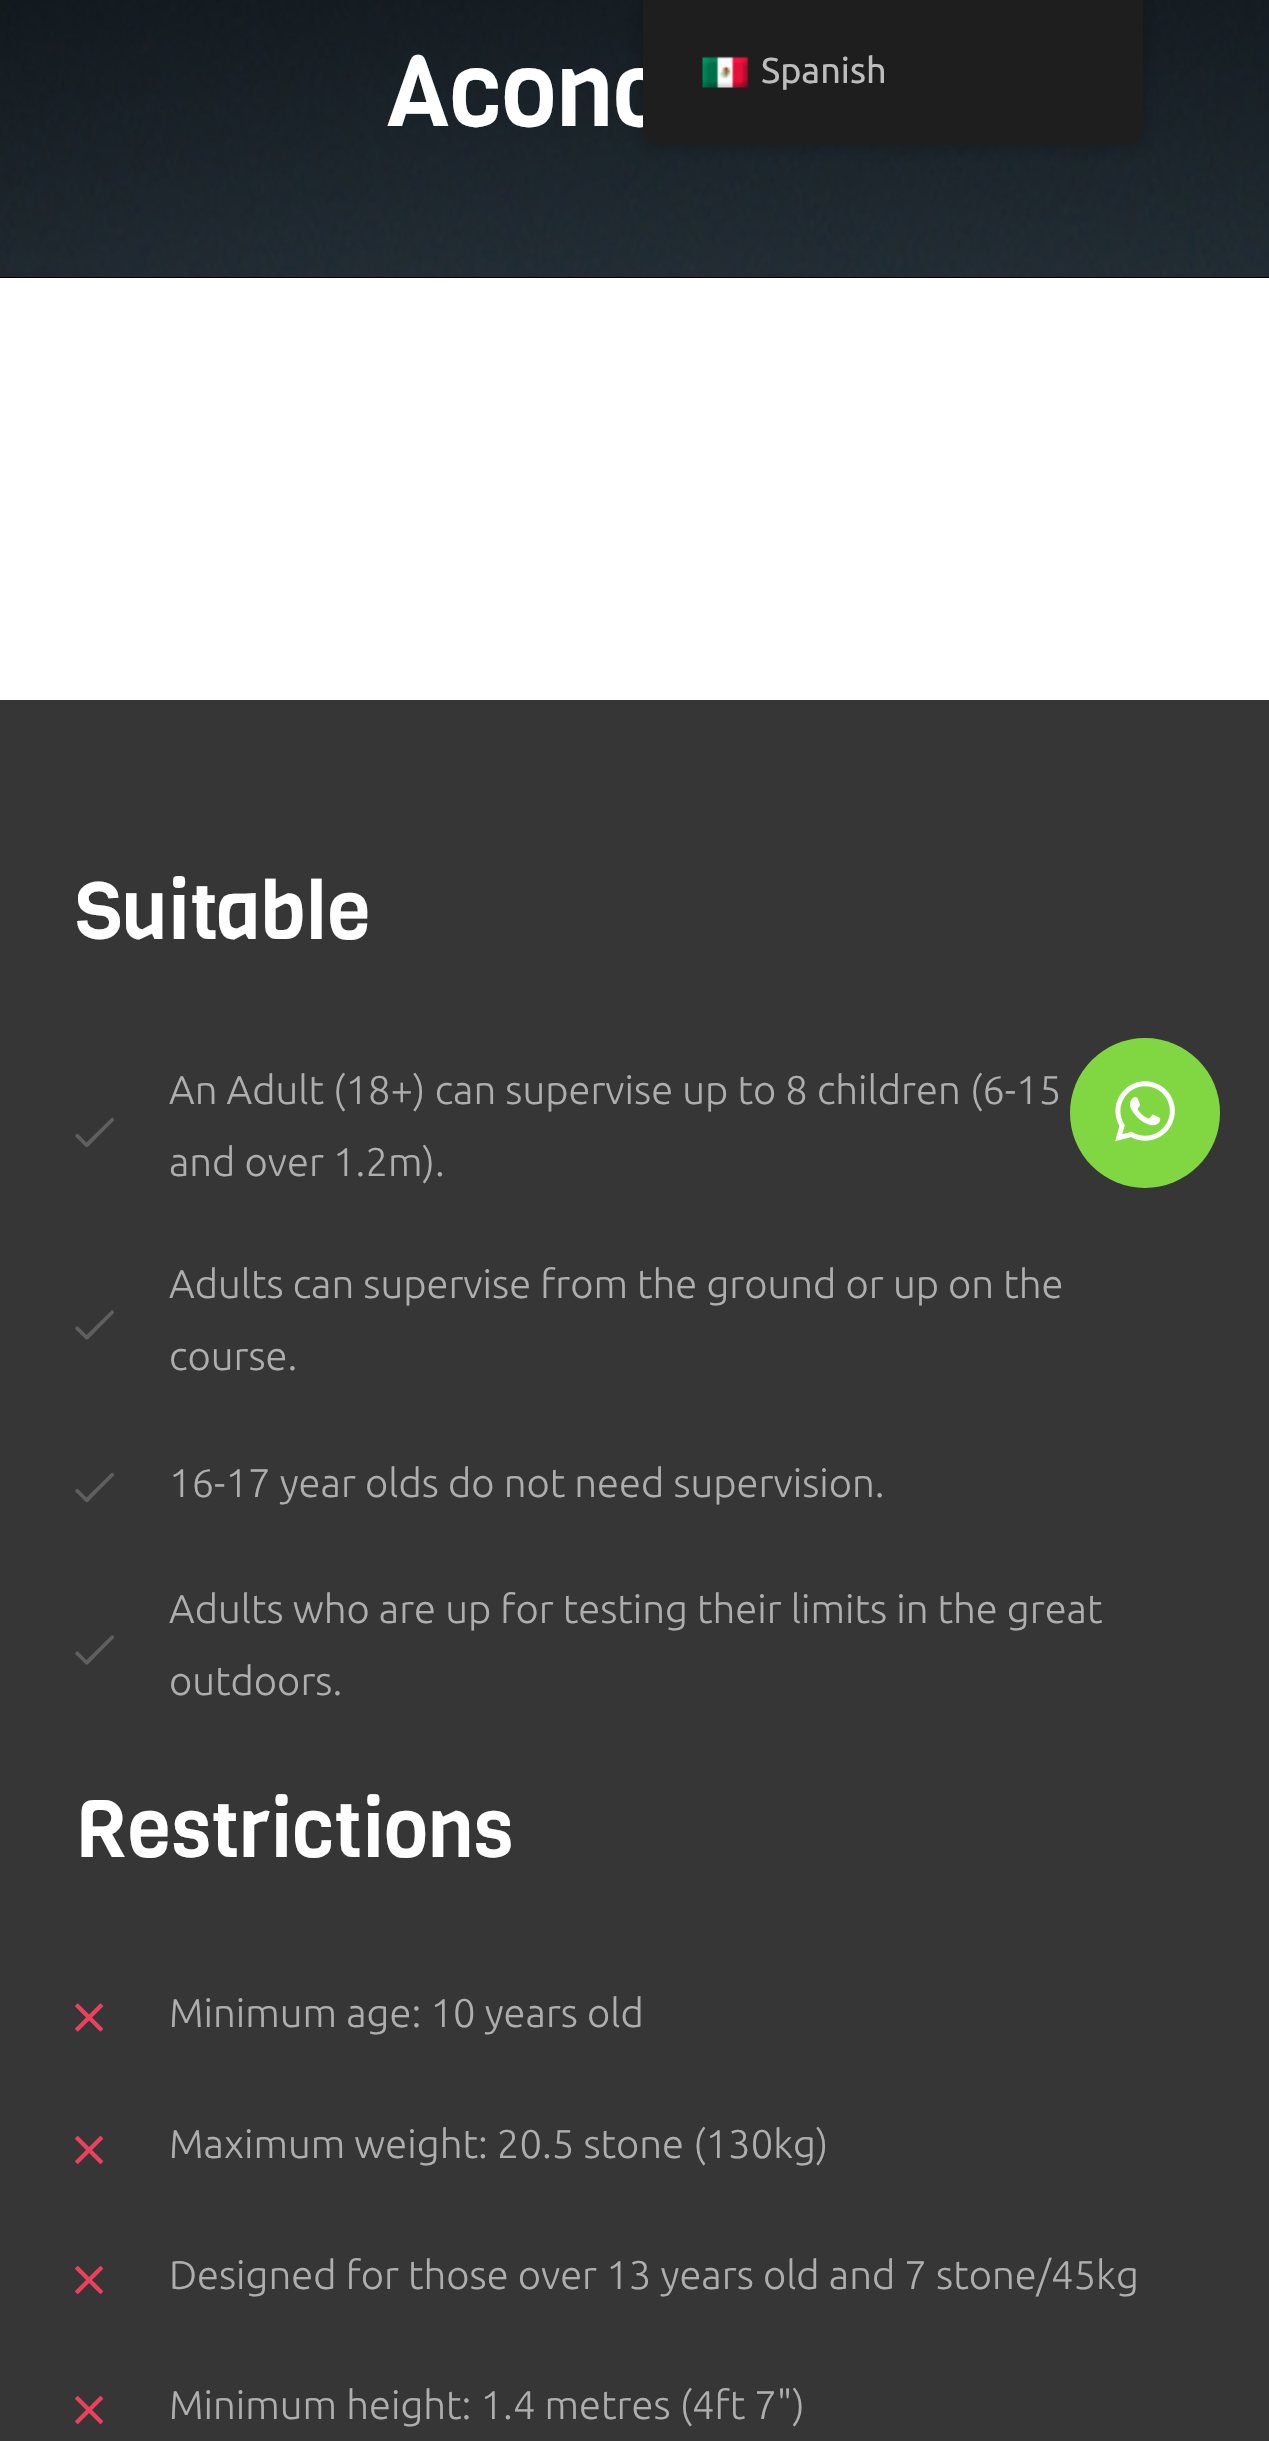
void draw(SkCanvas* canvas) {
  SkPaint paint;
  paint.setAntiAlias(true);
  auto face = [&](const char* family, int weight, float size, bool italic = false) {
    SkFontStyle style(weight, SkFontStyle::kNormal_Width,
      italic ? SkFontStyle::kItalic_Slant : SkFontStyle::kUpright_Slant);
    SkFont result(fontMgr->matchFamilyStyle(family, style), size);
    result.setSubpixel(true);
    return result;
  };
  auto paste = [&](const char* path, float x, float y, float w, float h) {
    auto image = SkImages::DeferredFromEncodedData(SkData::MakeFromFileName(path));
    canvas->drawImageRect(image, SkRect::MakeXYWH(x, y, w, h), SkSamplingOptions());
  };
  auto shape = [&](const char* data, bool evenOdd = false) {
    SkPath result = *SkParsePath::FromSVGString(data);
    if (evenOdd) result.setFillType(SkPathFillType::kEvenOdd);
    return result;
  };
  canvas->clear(0xffffffff);
  paint.setColor(0xff000000);
  canvas->drawRect(SkRect::MakeXYWH(0, 277, 1269, 1), paint);
  paste("img/1.png", 0, 0, 1269, 277);
  paint.setColor(0xff363636);
  canvas->drawRect(SkRect::MakeXYWH(0, 700, 1269, 1741), paint);
  paint.setColor(0xff5f5f5f);
  canvas->drawPath(shape("M111.5 1118L86.5 1142.5L78 1134H76.5C73.5 1136.5 76.5 1137.5 79 1140C89 1150 85 1149.5 96.5 1138L114 1120.5V1119.5C114 1118.5 112.5 1117 111.5 1118Z"), paint);
  canvas->drawPath(shape("M111.5 1310.5L86.5 1335L78 1326.5H76.5C73.5 1329 76.5 1330 79 1332.5C89 1342.5 85 1342 96.5 1330.5L114 1313V1312C114 1311 112.5 1309.5 111.5 1310.5Z"), paint);
  canvas->drawPath(shape("M111.5 1473L86.5 1497.5L78 1489H76.5C73.5 1491.5 76.5 1492.5 79 1495C89 1505 85 1504.5 96.5 1493L114 1475.5V1474.5C114 1473.5 112.5 1472 111.5 1473Z"), paint);
  canvas->drawPath(shape("M111.5 1635.5L86.5 1660L78 1651.5H76.5C73.5 1654 76.5 1655 79 1657.5C89 1667.5 85 1667 96.5 1655.5L114 1638V1637C114 1636 112.5 1634.5 111.5 1635.5Z"), paint);
  paste("img/2.png", 75, 2003, 29, 29);
  paste("img/3.png", 75, 2136, 29, 28);
  paste("img/3.png", 75, 2266, 29, 28);
  paste("img/3.png", 75, 2396, 29, 28);
  paint.setColor(0x40000000);
  paint.setMaskFilter(SkMaskFilter::MakeBlur(kNormal_SkBlurStyle, 10));
  canvas->drawRoundRect(SkRect::MakeXYWH(643, 0, 500, 145), 13, 13, paint);
  paint.setMaskFilter(nullptr);
  paint.setColor(0xff81d742);
  canvas->drawCircle(1145, 1113, 75, paint);
  paste("img/5.png", 1115, 1081, 60, 61);
  auto f0 = face("Viga", 400, 100);
  paint.setColor(0xffffffff);
  canvas->drawString("Aconc", 386, 126, f0, paint);
  auto f1 = face("Viga", 400, 80);
  canvas->drawString("Suitable", 75, 939, f1, paint);
  auto f2 = face("Ubuntu", 300, 40);
  paint.setColor(0xffaeaeae);
  {
    const struct { const char* s; float x, y; } items[] = {
      {"An Adult (18+) can supervise up to 8 children (6-15", 169, 1104},
      {"and over 1.2m).", 169, 1176},
      {"Adults can supervise from the ground or up on the", 169, 1298},
      {"course.", 169, 1370},
      {"16-17 year olds do not need supervision.", 169, 1497},
      {"Adults who are up for testing their limits in the great", 169, 1623},
      {"outdoors.", 169, 1695},
    };
    for (auto [s, x, y] : items) {
      canvas->drawString(s, x, y, f2, paint);
    }
  }
  paint.setColor(0xffffffff);
  canvas->drawString("Restrictions", 75, 1857, f1, paint);
  paint.setColor(0xffaeaeae);
  {
    const struct { const char* s; float x, y; } items[] = {
      {"Minimum age: 10 years old", 169, 2027},
      {"Maximum weight: 20.5 stone (130kg)", 169, 2158},
      {"Designed for those over 13 years old and 7 stone/45kg", 169, 2289},
      {"Minimum height: 1.4 metres (4ft 7\")", 169, 2419},
    };
    for (auto [s, x, y] : items) {
      canvas->drawString(s, x, y, f2, paint);
    }
  }
  paint.setColor(0xff1e1e1e);
  canvas->drawPath(shape("M643 0H1143V132C1143 139 1137 145 1130 145H656C649 145 643 139 643 132Z"), paint);
  paste("img/4.png", 702, 56, 47, 32);
  auto f3 = face("Ubuntu", 400, 36);
  paint.setColor(0xffbdbdbd);
  canvas->drawString("Spanish", 761, 83, f3, paint);
}
